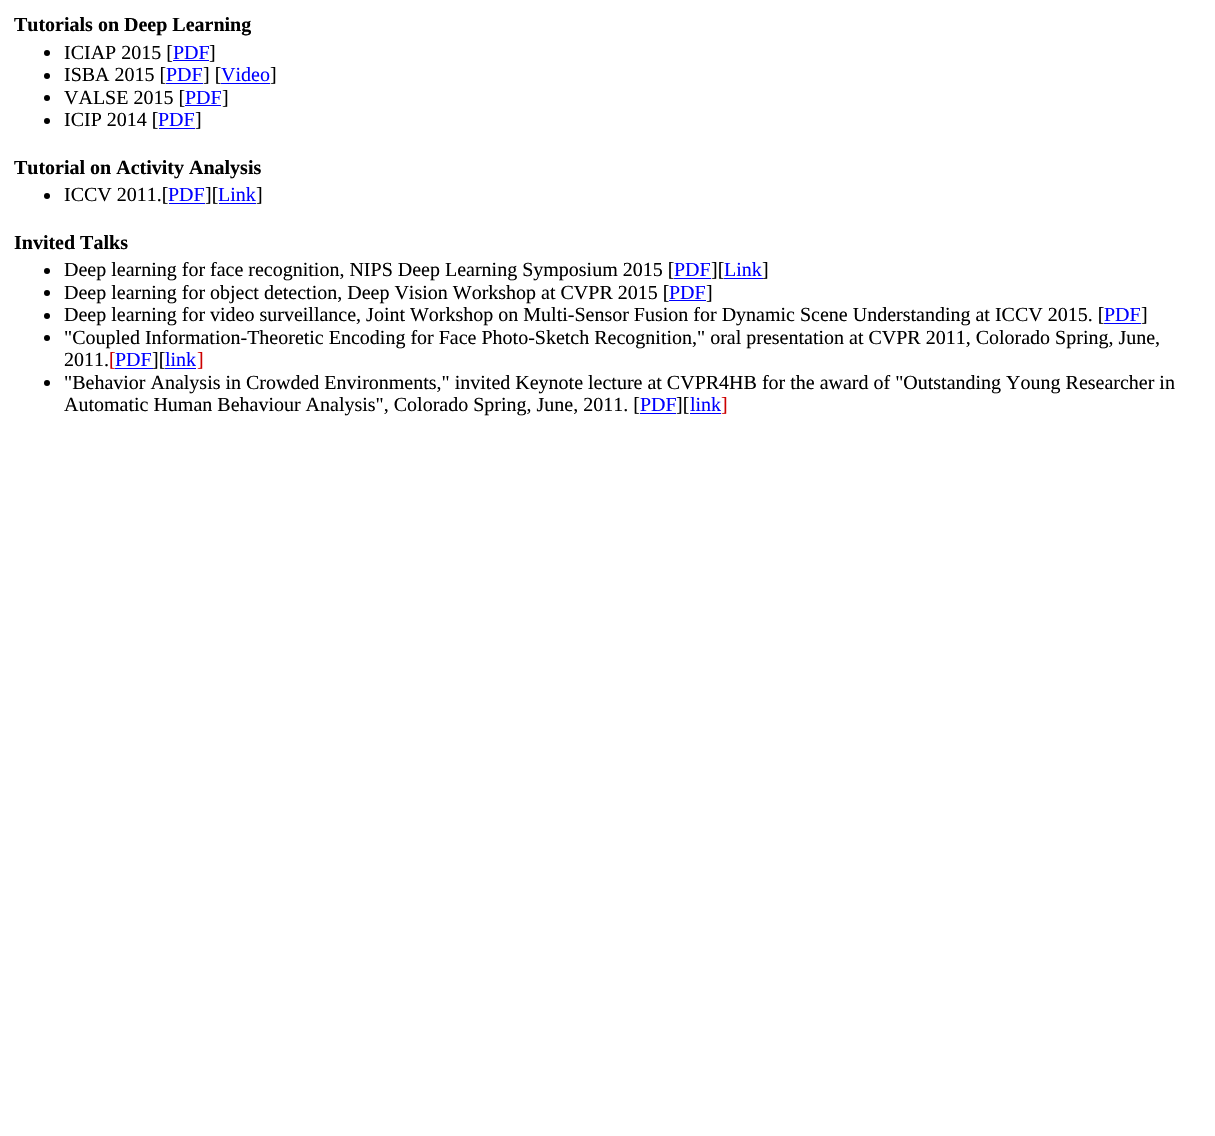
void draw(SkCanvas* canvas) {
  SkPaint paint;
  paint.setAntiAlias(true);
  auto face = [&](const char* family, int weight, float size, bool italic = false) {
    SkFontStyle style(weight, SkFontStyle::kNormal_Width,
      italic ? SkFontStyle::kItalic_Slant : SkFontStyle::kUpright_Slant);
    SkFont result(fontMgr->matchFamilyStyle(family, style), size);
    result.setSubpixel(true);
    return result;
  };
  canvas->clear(0xffffffff);
  paint.setColor(0xff000000);
  canvas->drawCircle(47, 53, 3, paint);
  paint.setColor(0xff0000ff);
  canvas->drawRect(SkRect::MakeXYWH(173, 60, 36, 1), paint);
  paint.setColor(0xff000000);
  canvas->drawCircle(47, 76, 3, paint);
  paint.setColor(0xff0000ff);
  canvas->drawRect(SkRect::MakeXYWH(166, 83, 37, 1), paint);
  canvas->drawRect(SkRect::MakeXYWH(221, 83, 49, 1), paint);
  paint.setColor(0xff000000);
  canvas->drawCircle(47, 98, 3, paint);
  paint.setColor(0xff0000ff);
  canvas->drawRect(SkRect::MakeXYWH(185, 105, 36, 1), paint);
  paint.setColor(0xff000000);
  canvas->drawCircle(47, 121, 3, paint);
  paint.setColor(0xff0000ff);
  canvas->drawRect(SkRect::MakeXYWH(159, 128, 36, 1), paint);
  paint.setColor(0xff000000);
  canvas->drawCircle(47, 196, 3, paint);
  paint.setColor(0xff0000ff);
  canvas->drawRect(SkRect::MakeXYWH(169, 203, 36, 1), paint);
  canvas->drawRect(SkRect::MakeXYWH(219, 203, 37, 1), paint);
  paint.setColor(0xff000000);
  canvas->drawCircle(47, 271, 3, paint);
  paint.setColor(0xff0000ff);
  canvas->drawRect(SkRect::MakeXYWH(674, 278, 37, 1), paint);
  canvas->drawRect(SkRect::MakeXYWH(724, 278, 39, 1), paint);
  paint.setColor(0xff000000);
  canvas->drawCircle(47, 293, 3, paint);
  paint.setColor(0xff0000ff);
  canvas->drawRect(SkRect::MakeXYWH(669, 300, 37, 1), paint);
  paint.setColor(0xff000000);
  canvas->drawCircle(47, 316, 3, paint);
  paint.setColor(0xff0000ff);
  canvas->drawRect(SkRect::MakeXYWH(1104, 323, 37, 1), paint);
  paint.setColor(0xff000000);
  canvas->drawCircle(47, 338, 3, paint);
  paint.setColor(0xff0000ff);
  canvas->drawRect(SkRect::MakeXYWH(115, 368, 38, 1), paint);
  canvas->drawRect(SkRect::MakeXYWH(165, 368, 31, 1), paint);
  paint.setColor(0xff000000);
  canvas->drawCircle(47, 383, 3, paint);
  paint.setColor(0xff0000ff);
  canvas->drawRect(SkRect::MakeXYWH(640, 413, 36, 1), paint);
  canvas->drawRect(SkRect::MakeXYWH(690, 413, 31, 1), paint);
  auto f0 = face("Liberation Serif", 700, 20);
  paint.setColor(0xff000000);
  canvas->drawString("Tutorials on Deep Learning", 14, 31, f0, paint);
  auto f1 = face("Liberation Serif", 400, 20);
  canvas->drawString("ICIAP 2015 [", 64, 59, f1, paint);
  paint.setColor(0xff0000ff);
  canvas->drawString("PDF", 173, 59, f1, paint);
  paint.setColor(0xff000000);
  canvas->drawString("]", 209, 59, f1, paint);
  canvas->drawString("ISBA 2015 [", 64, 81, f1, paint);
  paint.setColor(0xff0000ff);
  canvas->drawString("PDF", 166, 81, f1, paint);
  paint.setColor(0xff000000);
  canvas->drawString("] [", 203, 81, f1, paint);
  paint.setColor(0xff0000ff);
  canvas->drawString("Video", 221, 81, f1, paint);
  paint.setColor(0xff000000);
  canvas->drawString("]", 270, 81, f1, paint);
  canvas->drawString("VALSE 2015 [", 64, 104, f1, paint);
  paint.setColor(0xff0000ff);
  canvas->drawString("PDF", 185, 104, f1, paint);
  paint.setColor(0xff000000);
  canvas->drawString("]", 222, 104, f1, paint);
  canvas->drawString("ICIP 2014 [", 64, 126, f1, paint);
  paint.setColor(0xff0000ff);
  canvas->drawString("PDF", 158, 126, f1, paint);
  paint.setColor(0xff000000);
  canvas->drawString("]", 195, 126, f1, paint);
  canvas->drawString("Tutorial on Activity Analysis", 14, 174, f0, paint);
  canvas->drawString("ICCV 2011.[", 64, 201, f1, paint);
  paint.setColor(0xff0000ff);
  canvas->drawString("PDF", 168, 201, f1, paint);
  paint.setColor(0xff000000);
  canvas->drawString("][", 205, 201, f1, paint);
  paint.setColor(0xff0000ff);
  canvas->drawString("Link", 218, 201, f1, paint);
  paint.setColor(0xff000000);
  canvas->drawString("]", 256, 201, f1, paint);
  canvas->drawString("Invited Talks", 14, 249, f0, paint);
  canvas->drawString("Deep learning for face recognition, NIPS Deep Learning Symposium 2015 [", 64, 276, f1, paint);
  paint.setColor(0xff0000ff);
  canvas->drawString("PDF", 674, 276, f1, paint);
  paint.setColor(0xff000000);
  canvas->drawString("][", 711, 276, f1, paint);
  paint.setColor(0xff0000ff);
  canvas->drawString("Link", 724, 276, f1, paint);
  paint.setColor(0xff000000);
  canvas->drawString("]", 762, 276, f1, paint);
  canvas->drawString("Deep learning for object detection, Deep Vision Workshop at CVPR 2015 [", 64, 299, f1, paint);
  paint.setColor(0xff0000ff);
  canvas->drawString("PDF", 669, 299, f1, paint);
  paint.setColor(0xff000000);
  canvas->drawString("]", 706, 299, f1, paint);
  canvas->drawString("Deep learning for video surveillance, Joint Workshop on Multi-Sensor Fusion for Dynamic Scene Understanding at ICCV 2015. [", 64, 321, f1, paint);
  paint.setColor(0xff0000ff);
  canvas->drawString("PDF", 1104, 321, f1, paint);
  paint.setColor(0xff000000);
  {
    const struct { const char* s; float x, y; } items[] = {
      {"]", 1141, 321},
      {"\"Coupled Information-Theoretic Encoding for Face Photo-Sketch Recognition,\" oral presentation at CVPR 2011, Colorado Spring, June,", 64, 344},
      {"2011.", 64, 366},
    };
    for (auto [s, x, y] : items) {
      canvas->drawString(s, x, y, f1, paint);
    }
  }
  paint.setColor(0xffcc0000);
  canvas->drawString("[", 109, 366, f1, paint);
  paint.setColor(0xff0000ff);
  canvas->drawString("PDF", 115, 366, f1, paint);
  paint.setColor(0xff000000);
  canvas->drawString("][", 152, 366, f1, paint);
  paint.setColor(0xff0000ff);
  canvas->drawString("link", 165, 366, f1, paint);
  paint.setColor(0xffcc0000);
  canvas->drawString("]", 197, 366, f1, paint);
  paint.setColor(0xff000000);
  canvas->drawString("\"Behavior Analysis in Crowded Environments,\" invited Keynote lecture at CVPR4HB for the award of \"Outstanding Young Researcher in", 64, 389, f1, paint);
  canvas->drawString("Automatic Human Behaviour Analysis\", Colorado Spring, June, 2011. [", 64, 411, f1, paint);
  paint.setColor(0xff0000ff);
  canvas->drawString("PDF", 640, 411, f1, paint);
  paint.setColor(0xff000000);
  canvas->drawString("][", 676, 411, f1, paint);
  paint.setColor(0xff0000ff);
  canvas->drawString("link", 690, 411, f1, paint);
  paint.setColor(0xffcc0000);
  canvas->drawString("]", 721, 411, f1, paint);
}
